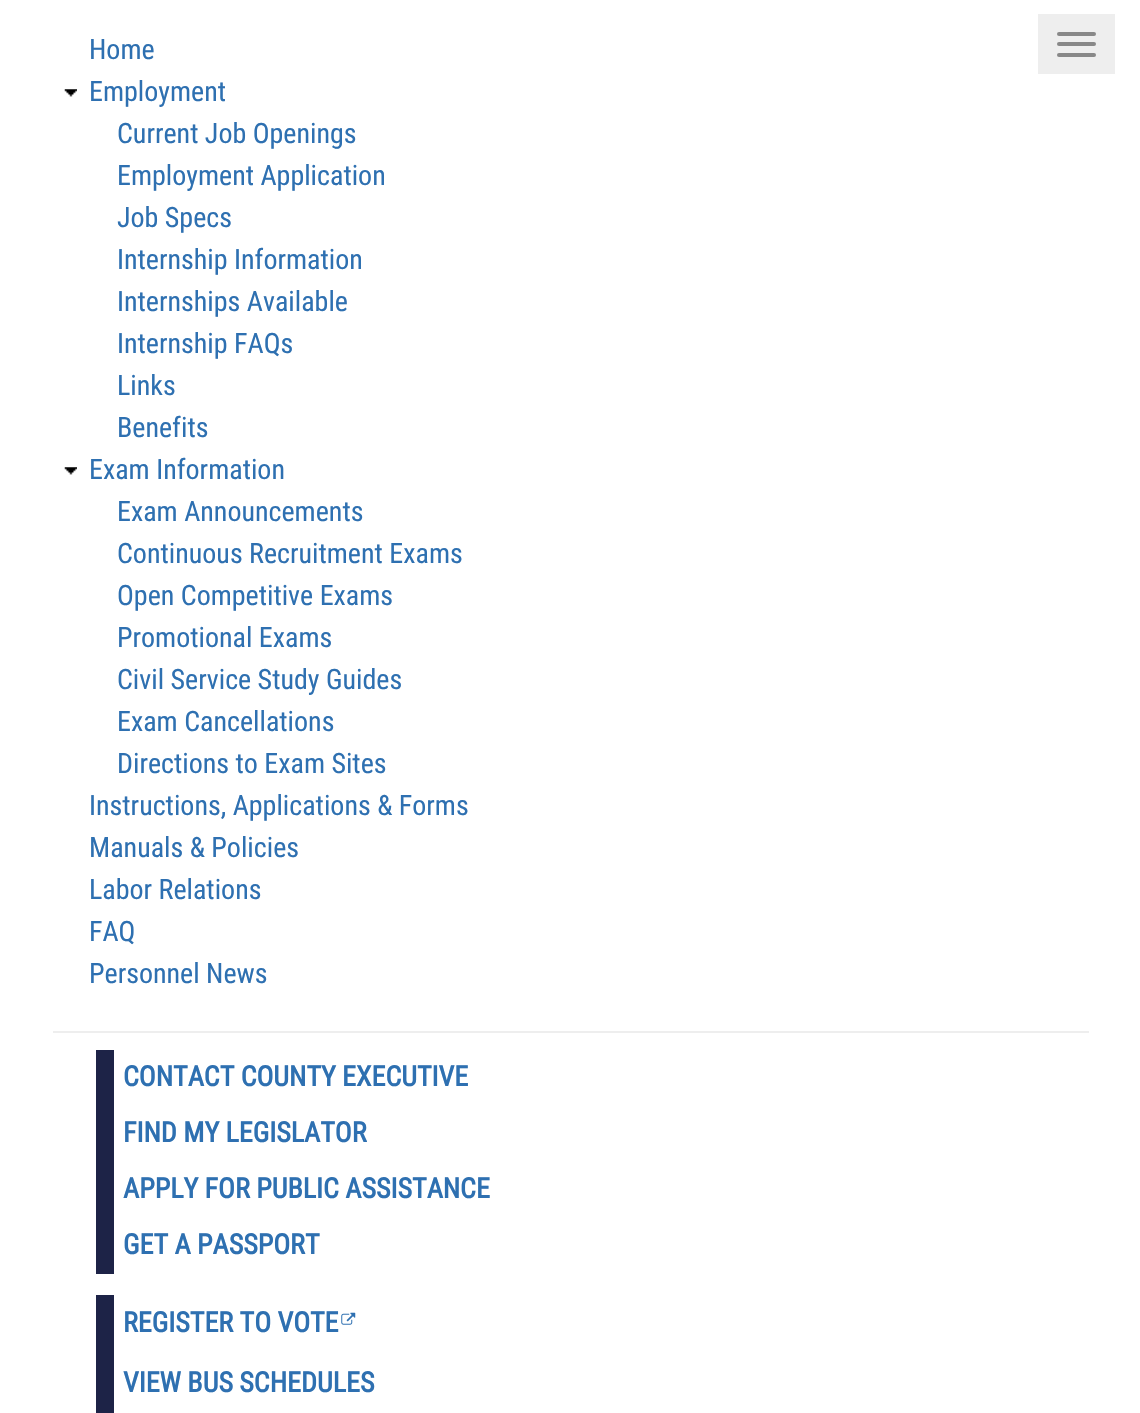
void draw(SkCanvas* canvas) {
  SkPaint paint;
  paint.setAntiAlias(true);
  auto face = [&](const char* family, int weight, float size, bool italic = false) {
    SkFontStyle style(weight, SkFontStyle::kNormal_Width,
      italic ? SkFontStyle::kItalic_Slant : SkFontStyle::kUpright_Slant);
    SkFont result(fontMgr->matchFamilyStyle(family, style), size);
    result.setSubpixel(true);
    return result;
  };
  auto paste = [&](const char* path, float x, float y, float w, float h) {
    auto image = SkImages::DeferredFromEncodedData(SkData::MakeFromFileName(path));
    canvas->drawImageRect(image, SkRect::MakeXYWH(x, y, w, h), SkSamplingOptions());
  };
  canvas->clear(0xffffffff);
  paste("img/1.png", 64, 89, 13, 8);
  paste("img/1.png", 64, 467, 13, 8);
  paint.setColor(0xffeeeeee);
  canvas->drawRect(SkRect::MakeXYWH(1038, 14, 77, 60), paint);
  paint.setColor(0xff888888);
  canvas->drawRoundRect(SkRect::MakeXYWH(1057, 32, 39, 4), 2, 2, paint);
  canvas->drawRoundRect(SkRect::MakeXYWH(1057, 42, 39, 4), 2, 2, paint);
  canvas->drawRoundRect(SkRect::MakeXYWH(1057, 53, 39, 4), 2, 2, paint);
  {
    const struct { float x, y, w, h; SkColor color; } items[] = {
      {53, 1031, 1036, 2, 0xffeeeeee},
      {96, 1050, 18, 224, 0xff1d2347},
      {96, 1295, 18, 118, 0xff1d2347},
    };
    for (auto [x, y, w, h, color] : items) {
      paint.setColor(color);
      canvas->drawRect(SkRect::MakeXYWH(x, y, w, h), paint);
    }
  }
  paste("img/2.png", 341, 1312, 15, 13);
  auto f0 = face("Roboto Condensed", 400, 28);
  paint.setColor(0xff2e70b1);
  {
    const struct { const char* s; float x, y; } items[] = {
      {"Home", 89, 59},
      {"Employment", 89, 101},
      {"Current Job Openings", 117, 143},
      {"Employment Application", 117, 185},
      {"Job Specs", 117, 227},
      {"Internship Information", 117, 269},
      {"Internships Available", 117, 311},
      {"Internship FAQs", 117, 353},
      {"Links", 117, 395},
      {"Benefits", 117, 437},
      {"Exam Information", 89, 479},
      {"Exam Announcements", 117, 521},
      {"Continuous Recruitment Exams", 117, 563},
      {"Open Competitive Exams", 117, 605},
      {"Promotional Exams", 117, 647},
      {"Civil Service Study Guides", 117, 689},
      {"Exam Cancellations", 117, 731},
      {"Directions to Exam Sites", 117, 773},
      {"Instructions, Applications & Forms", 89, 815},
      {"Manuals & Policies", 89, 857},
      {"Labor Relations", 89, 899},
      {"FAQ", 89, 941},
      {"Personnel News", 89, 983},
    };
    for (auto [s, x, y] : items) {
      canvas->drawString(s, x, y, f0, paint);
    }
  }
  auto f1 = face("Roboto Condensed", 700, 28);
  {
    const struct { const char* s; float x, y; } items[] = {
      {"CONTACT COUNTY EXECUTIVE", 123, 1086},
      {"FIND MY LEGISLATOR", 123, 1142},
      {"APPLY FOR PUBLIC ASSISTANCE", 123, 1198},
      {"GET A PASSPORT", 123, 1254},
      {"REGISTER TO VOTE", 123, 1332},
      {"VIEW BUS SCHEDULES", 123, 1392},
    };
    for (auto [s, x, y] : items) {
      canvas->drawString(s, x, y, f1, paint);
    }
  }
}
